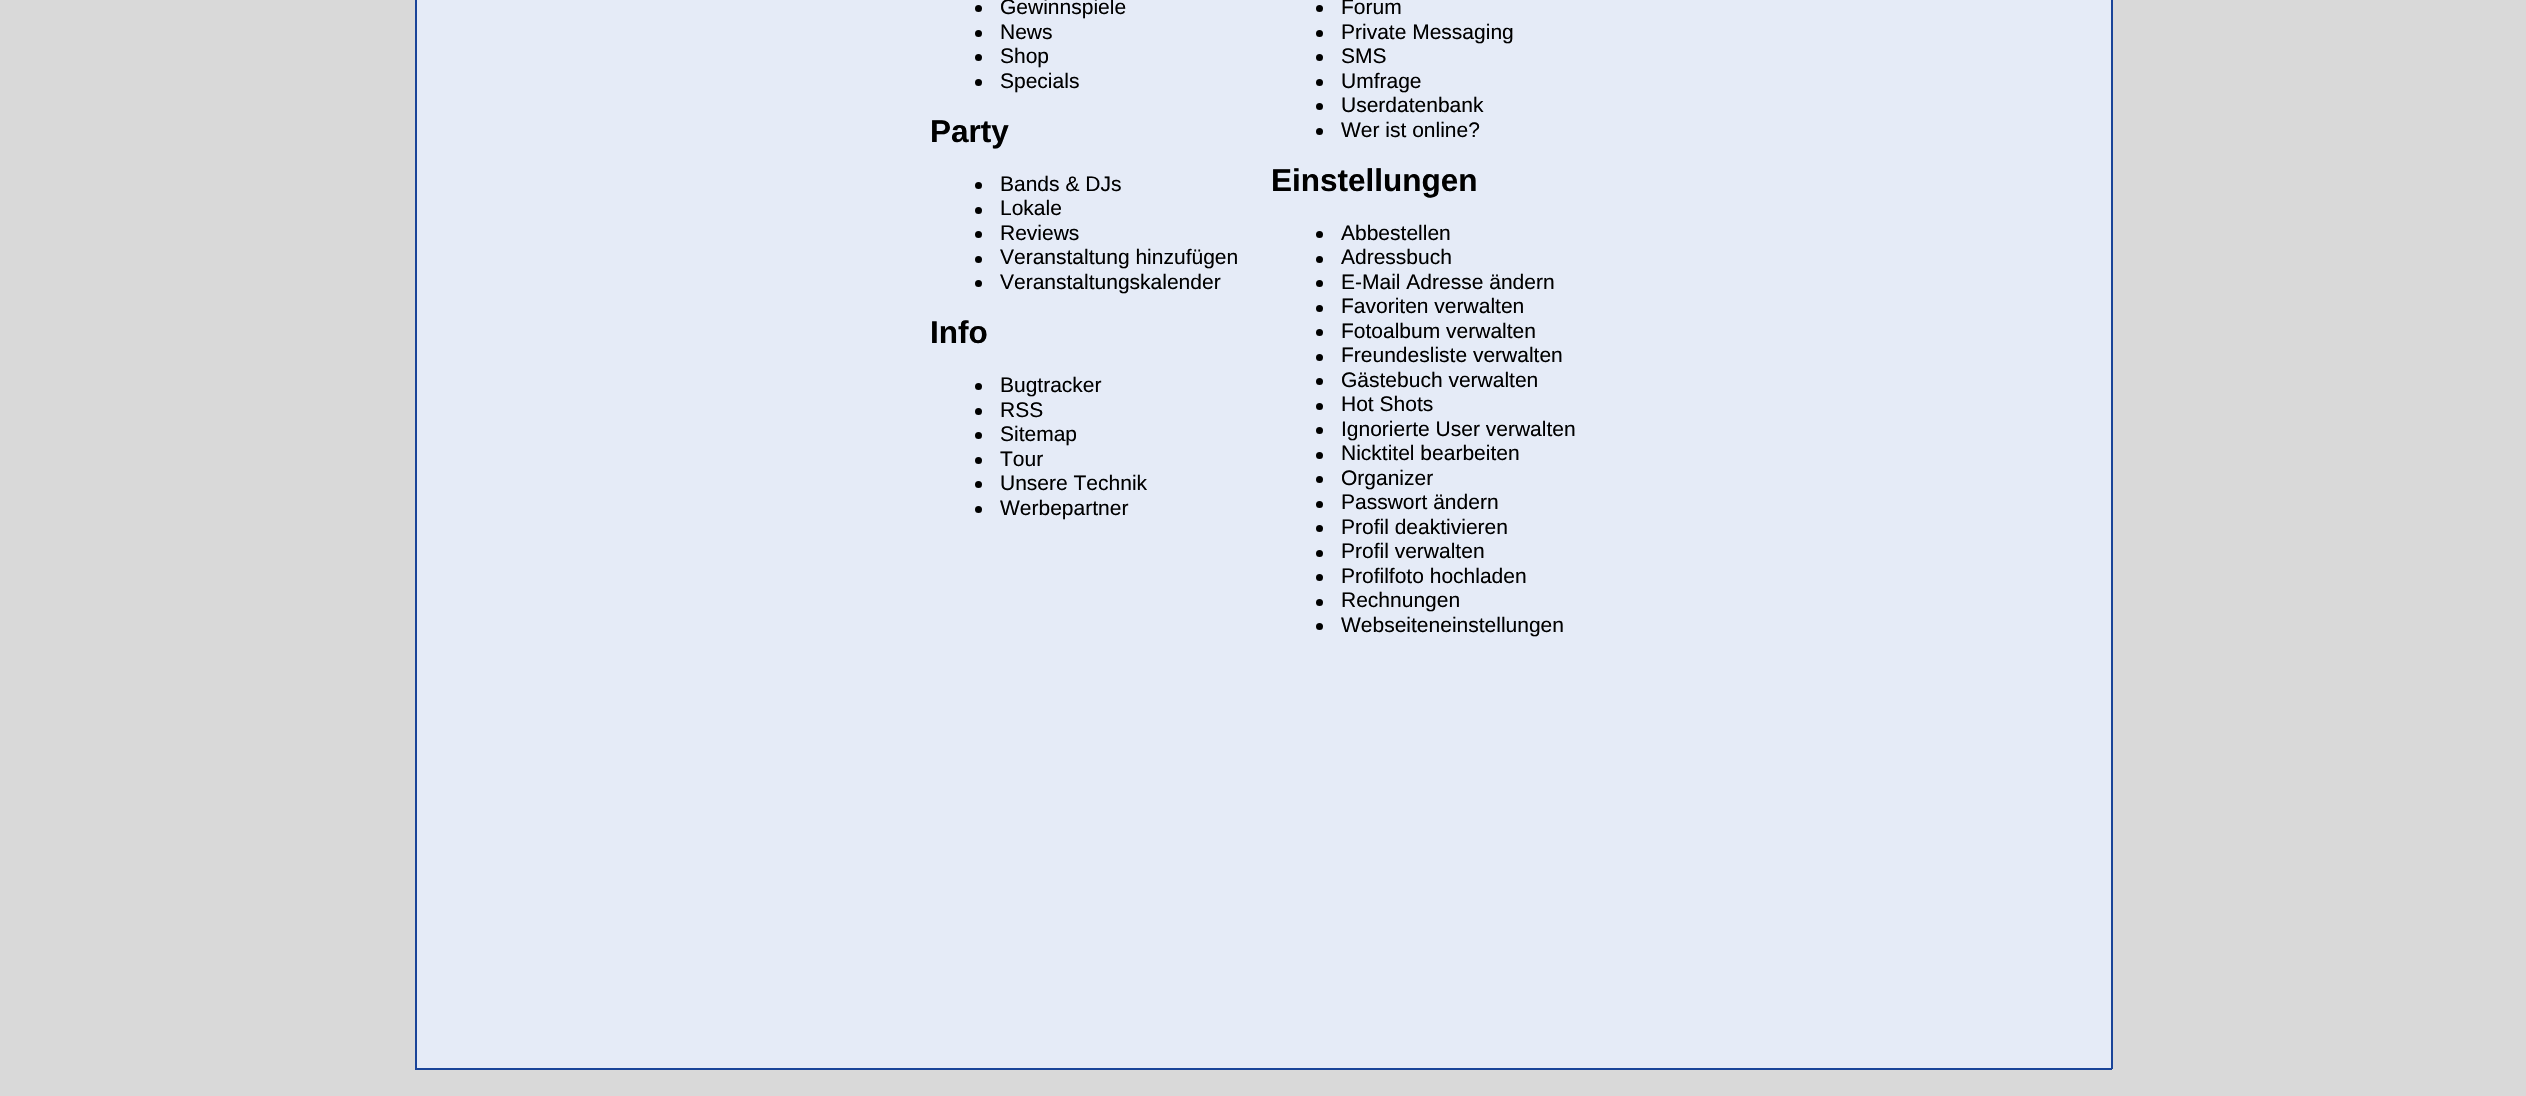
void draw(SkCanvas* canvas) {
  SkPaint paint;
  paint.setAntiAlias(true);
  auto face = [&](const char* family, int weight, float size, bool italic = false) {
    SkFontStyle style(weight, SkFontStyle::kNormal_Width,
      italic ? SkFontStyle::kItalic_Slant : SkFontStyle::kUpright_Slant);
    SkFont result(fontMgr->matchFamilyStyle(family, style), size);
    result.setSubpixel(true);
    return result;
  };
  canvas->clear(0xffd9d9d9);
  {
    const struct { float x, y, w, h; SkColor color; } items[] = {
      {417, 0, 1694, 1068, 0xffe5ebf7},
      {2111, 0, 2, 1069, 0xff1a4499},
      {415, 1068, 1697, 2, 0xff1a4499},
      {415, 0, 2, 1069, 0xff1a4499},
    };
    for (auto [x, y, w, h, color] : items) {
      paint.setColor(color);
      canvas->drawRect(SkRect::MakeXYWH(x, y, w, h), paint);
    }
  }
  paint.setColor(0xff000000);
  canvas->drawCircle(978.5f, 8.5f, 3.5f, paint);
  canvas->drawCircle(978.5f, 33.5f, 3.5f, paint);
  canvas->drawCircle(978.5f, 57.5f, 3.5f, paint);
  canvas->drawCircle(978.5f, 82.5f, 3.5f, paint);
  canvas->drawCircle(978.5f, 185.5f, 3.5f, paint);
  canvas->drawCircle(978.5f, 210.5f, 3.5f, paint);
  canvas->drawCircle(978.5f, 234.5f, 3.5f, paint);
  canvas->drawCircle(978.5f, 259.5f, 3.5f, paint);
  canvas->drawCircle(978.5f, 283.5f, 3.5f, paint);
  canvas->drawCircle(978.5f, 386.5f, 3.5f, paint);
  canvas->drawCircle(978.5f, 411.5f, 3.5f, paint);
  canvas->drawCircle(978.5f, 435.5f, 3.5f, paint);
  canvas->drawCircle(978.5f, 460.5f, 3.5f, paint);
  canvas->drawCircle(978.5f, 484.5f, 3.5f, paint);
  canvas->drawCircle(978.5f, 509.5f, 3.5f, paint);
  canvas->drawCircle(1319.5f, 8.5f, 3.5f, paint);
  canvas->drawCircle(1319.5f, 33.5f, 3.5f, paint);
  canvas->drawCircle(1319.5f, 57.5f, 3.5f, paint);
  canvas->drawCircle(1319.5f, 82.5f, 3.5f, paint);
  canvas->drawCircle(1319.5f, 106.5f, 3.5f, paint);
  canvas->drawCircle(1319.5f, 131.5f, 3.5f, paint);
  canvas->drawCircle(1319.5f, 234.5f, 3.5f, paint);
  canvas->drawCircle(1319.5f, 259.5f, 3.5f, paint);
  canvas->drawCircle(1319.5f, 283.5f, 3.5f, paint);
  canvas->drawCircle(1319.5f, 308.5f, 3.5f, paint);
  canvas->drawCircle(1319.5f, 332.5f, 3.5f, paint);
  canvas->drawCircle(1319.5f, 357.5f, 3.5f, paint);
  canvas->drawCircle(1319.5f, 381.5f, 3.5f, paint);
  canvas->drawCircle(1319.5f, 406.5f, 3.5f, paint);
  canvas->drawCircle(1319.5f, 430.5f, 3.5f, paint);
  canvas->drawCircle(1319.5f, 455.5f, 3.5f, paint);
  canvas->drawCircle(1319.5f, 479.5f, 3.5f, paint);
  canvas->drawCircle(1319.5f, 504.5f, 3.5f, paint);
  canvas->drawCircle(1319.5f, 528.5f, 3.5f, paint);
  canvas->drawCircle(1319.5f, 553.5f, 3.5f, paint);
  canvas->drawCircle(1319.5f, 577.5f, 3.5f, paint);
  canvas->drawCircle(1319.5f, 602.5f, 3.5f, paint);
  canvas->drawCircle(1319.5f, 626.5f, 3.5f, paint);
  auto f0 = face("Liberation Sans", 400, 21);
  {
    const struct { const char* s; float x, y; } items[] = {
      {"Gewinnspiele", 1000, 14},
      {"News", 1000, 39},
      {"Shop", 1000, 63},
      {"Specials", 1000, 88},
    };
    for (auto [s, x, y] : items) {
      canvas->drawString(s, x, y, f0, paint);
    }
  }
  auto f1 = face("Liberation Sans", 700, 31.5f);
  canvas->drawString("Party", 930, 142, f1, paint);
  {
    const struct { const char* s; float x, y; } items[] = {
      {"Bands & DJs", 1000, 191},
      {"Lokale", 1000, 215},
      {"Reviews", 1000, 240},
      {"Veranstaltung hinzufügen", 1000, 264},
      {"Veranstaltungskalender", 1000, 289},
    };
    for (auto [s, x, y] : items) {
      canvas->drawString(s, x, y, f0, paint);
    }
  }
  canvas->drawString("Info", 930, 343, f1, paint);
  {
    const struct { const char* s; float x, y; } items[] = {
      {"Bugtracker", 1000, 392},
      {"RSS", 1000, 417},
      {"Sitemap", 1000, 441},
      {"Tour", 1000, 466},
      {"Unsere Technik", 1000, 490},
      {"Werbepartner", 1000, 515},
      {"Forum", 1341, 14},
      {"Private Messaging", 1341, 39},
      {"SMS", 1341, 63},
      {"Umfrage", 1341, 88},
      {"Userdatenbank", 1341, 112},
      {"Wer ist online?", 1341, 137},
    };
    for (auto [s, x, y] : items) {
      canvas->drawString(s, x, y, f0, paint);
    }
  }
  canvas->drawString("Einstellungen", 1271, 191, f1, paint);
  {
    const struct { const char* s; float x, y; } items[] = {
      {"Abbestellen", 1341, 240},
      {"Adressbuch", 1341, 264},
      {"E-Mail Adresse ändern", 1341, 289},
      {"Favoriten verwalten", 1341, 313},
      {"Fotoalbum verwalten", 1341, 338},
      {"Freundesliste verwalten", 1341, 362},
      {"Gästebuch verwalten", 1341, 387},
      {"Hot Shots", 1341, 411},
      {"Ignorierte User verwalten", 1341, 436},
      {"Nicktitel bearbeiten", 1341, 460},
      {"Organizer", 1341, 485},
      {"Passwort ändern", 1341, 509},
      {"Profil deaktivieren", 1341, 534},
      {"Profil verwalten", 1341, 558},
      {"Profilfoto hochladen", 1341, 583},
      {"Rechnungen", 1341, 607},
      {"Webseiteneinstellungen", 1341, 632},
    };
    for (auto [s, x, y] : items) {
      canvas->drawString(s, x, y, f0, paint);
    }
  }
}
